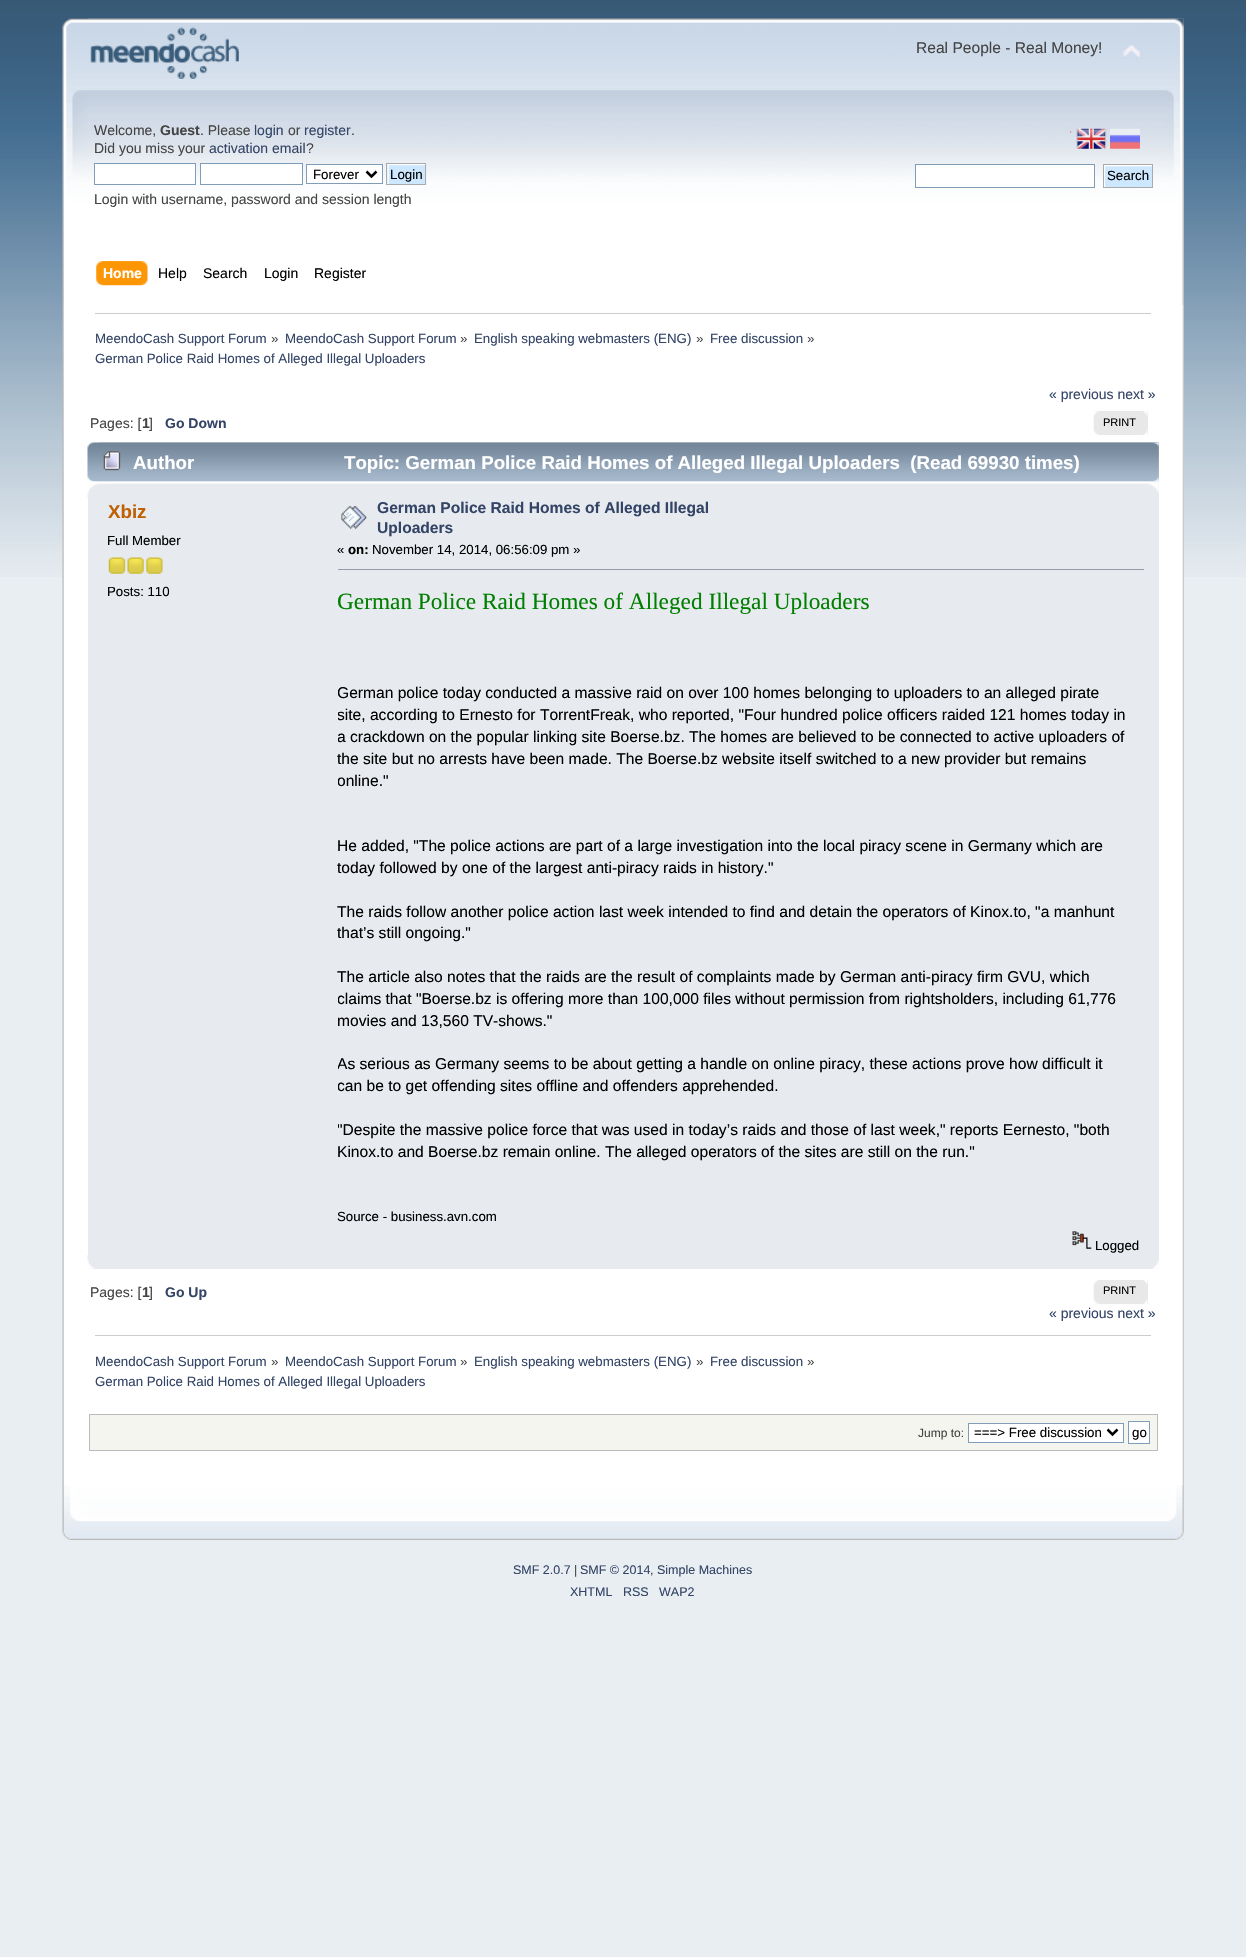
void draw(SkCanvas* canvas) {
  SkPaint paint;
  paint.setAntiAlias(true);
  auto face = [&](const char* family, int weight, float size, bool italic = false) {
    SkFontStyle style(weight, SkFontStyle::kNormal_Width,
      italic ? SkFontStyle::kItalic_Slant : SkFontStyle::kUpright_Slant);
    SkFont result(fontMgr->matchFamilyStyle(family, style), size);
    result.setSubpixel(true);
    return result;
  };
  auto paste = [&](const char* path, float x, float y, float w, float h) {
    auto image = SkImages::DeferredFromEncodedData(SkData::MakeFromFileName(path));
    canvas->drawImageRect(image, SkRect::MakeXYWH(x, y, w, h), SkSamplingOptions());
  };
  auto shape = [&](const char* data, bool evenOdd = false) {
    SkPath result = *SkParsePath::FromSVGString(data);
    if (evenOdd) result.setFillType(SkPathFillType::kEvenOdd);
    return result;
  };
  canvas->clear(0xffe9eef2);
  paste("img/1.png", 0, 0, 1246, 577);
  paste("img/2.png", 62, 18, 1122, 287);
  paste("img/3.png", 87, 18, 1097, 287);
  paste("img/4.png", 90, 27, 149, 52);
  paste("img/5.png", 1122, 44, 19, 15);
  paint.setColor(0xffffffff);
  canvas->drawRect(SkRect::MakeXYWH(94.5f, 163.5f, 101, 21), paint);
  paint.setStroke(true);
  paint.setStrokeWidth(1);
  paint.setColor(0xff7f9db9);
  canvas->drawRect(SkRect::MakeXYWH(94.5f, 163.5f, 101, 21), paint);
  paint.setStroke(false);
  paint.setColor(0xffffffff);
  canvas->drawRect(SkRect::MakeXYWH(200.5f, 163.5f, 102, 21), paint);
  paint.setStroke(true);
  paint.setColor(0xff7f9db9);
  canvas->drawRect(SkRect::MakeXYWH(200.5f, 163.5f, 102, 21), paint);
  paint.setStroke(false);
  paint.setColor(0xffffffff);
  canvas->drawRect(SkRect::MakeXYWH(306.5f, 164.5f, 76, 19), paint);
  paint.setStroke(true);
  paint.setColor(0xff7f9db9);
  canvas->drawRect(SkRect::MakeXYWH(306.5f, 164.5f, 76, 19), paint);
  paint.setStrokeWidth(2.5f);
  paint.setColor(0xff000000);
  canvas->drawPath(shape("M366.5 171.5L371.5 176.5L376.5 171.5"), paint);
  paint.setStroke(false);
  paint.setColor(0xffcde7ff);
  canvas->drawRect(SkRect::MakeXYWH(387, 164, 1, 20), paint);
  paste("img/6.png", 387, 163, 40, 22);
  paint.setStroke(true);
  paint.setStrokeWidth(1);
  paint.setColor(0xffaaaaaa);
  canvas->drawRect(SkRect::MakeXYWH(386.5f, 163.5f, 39, 21), paint);
  paste("img/7.png", 1070, 131, 2, 2);
  paste("img/8.png", 1076, 128, 31, 21);
  paste("img/9.png", 1110, 128, 30, 21);
  paint.setStroke(false);
  paint.setColor(0xffffffff);
  canvas->drawRect(SkRect::MakeXYWH(915.5f, 164.5f, 179, 23), paint);
  paint.setStroke(true);
  paint.setColor(0xff7f9db9);
  canvas->drawRect(SkRect::MakeXYWH(915.5f, 164.5f, 179, 23), paint);
  paste("img/10.png", 1104, 165, 48, 22);
  paint.setColor(0xffaaaaaa);
  canvas->drawRect(SkRect::MakeXYWH(1103.5f, 164.5f, 49, 23), paint);
  paste("img/11.png", 102, 261, 46, 25);
  paste("img/12.png", 96, 261, 46, 25);
  paint.setStroke(false);
  paint.setColor(0xffffffff);
  canvas->drawRect(SkRect::MakeXYWH(64, 305, 1120, 1180), paint);
  paste("img/13.png", 62, 305, 2, 1180);
  paste("img/14.png", 1182, 305, 2, 1180);
  paint.setColor(0xffcccccc);
  canvas->drawRect(SkRect::MakeXYWH(95, 313, 1056, 1), paint);
  paint.setColor(0xffe8e8e8);
  canvas->drawRect(SkRect::MakeXYWH(1094, 411, 54, 24), paint);
  paste("img/15.png", 1093, 411, 6, 24);
  paste("img/16.png", 1143, 411, 5, 24);
  paste("img/17.png", 87, 442, 1072, 40);
  paste("img/18.png", 98, 442, 1061, 40);
  paste("img/19.png", 103, 451, 18, 20);
  paint.setColor(0xffe7eaef);
  canvas->drawRect(SkRect::MakeXYWH(88, 484, 1071, 785), paint);
  paste("img/20.png", 87, 483, 1071, 15);
  paste("img/21.png", 113, 483, 1046, 10);
  paste("img/22.png", 108, 557, 18, 17);
  paste("img/23.png", 127, 557, 17, 17);
  paste("img/24.png", 146, 557, 17, 17);
  paste("img/25.png", 341, 506, 26, 23);
  paint.setColor(0xff9999aa);
  canvas->drawRect(SkRect::MakeXYWH(338, 569, 806, 1), paint);
  paste("img/26.png", 1072, 1231, 20, 18);
  paste("img/27.png", 87, 1255, 7, 14);
  paste("img/28.png", 1152, 1260, 7, 9);
  paint.setColor(0xffe8e8e8);
  canvas->drawRect(SkRect::MakeXYWH(1094, 1280, 54, 24), paint);
  paste("img/29.png", 1093, 1280, 6, 24);
  paste("img/30.png", 1143, 1280, 5, 24);
  paint.setColor(0xffcccccc);
  canvas->drawRect(SkRect::MakeXYWH(95, 1335, 1056, 1), paint);
  paint.setColor(0xfff5f5f0);
  canvas->drawRect(SkRect::MakeXYWH(89.5f, 1414.5f, 1068, 36), paint);
  paint.setStroke(true);
  paint.setColor(0xffbbbbbb);
  canvas->drawRect(SkRect::MakeXYWH(89.5f, 1414.5f, 1068, 36), paint);
  paint.setStroke(false);
  paint.setColor(0xffffffff);
  canvas->drawRect(SkRect::MakeXYWH(968.5f, 1423.5f, 155, 19), paint);
  paint.setStroke(true);
  paint.setColor(0xff7f9db9);
  canvas->drawRect(SkRect::MakeXYWH(968.5f, 1423.5f, 155, 19), paint);
  paint.setStrokeWidth(2.5f);
  paint.setColor(0xff000000);
  canvas->drawPath(shape("M1107.5 1429.5L1112.5 1434.5L1117.5 1429.5"), paint);
  paint.setStroke(false);
  paint.setColor(0xffffffff);
  canvas->drawRect(SkRect::MakeXYWH(1128.5f, 1421.5f, 21, 22), paint);
  paint.setStroke(true);
  paint.setStrokeWidth(1);
  paint.setColor(0xff7f9db9);
  canvas->drawRect(SkRect::MakeXYWH(1128.5f, 1421.5f, 21, 22), paint);
  paste("img/31.png", 62, 1485, 1122, 55);
  paste("img/32.png", 1168, 1485, 16, 55);
  auto f0 = face("Liberation Sans", 400, 15.6f);
  paint.setStroke(false);
  paint.setColor(0xff444444);
  canvas->drawString("Real People - Real Money!", 916, 53, f0, paint);
  auto f1 = face("Liberation Sans", 400, 14);
  canvas->drawString("Welcome,", 94, 135, f1, paint);
  auto f2 = face("Liberation Sans", 700, 14);
  canvas->drawString("Guest", 160, 135, f2, paint);
  canvas->drawString(". Please", 200, 135, f1, paint);
  paint.setColor(0xff334466);
  canvas->drawString("login", 254, 135, f1, paint);
  paint.setColor(0xff444444);
  canvas->drawString("or", 288, 135, f1, paint);
  paint.setColor(0xff334466);
  canvas->drawString("register", 304, 135, f1, paint);
  paint.setColor(0xff444444);
  canvas->drawString(".", 351, 135, f1, paint);
  canvas->drawString("Did you miss your", 94, 153, f1, paint);
  paint.setColor(0xff334466);
  canvas->drawString("activation email", 209, 153, f1, paint);
  paint.setColor(0xff444444);
  canvas->drawString("?", 306, 153, f1, paint);
  auto f3 = face("Liberation Sans", 400, 13.3f);
  paint.setColor(0xff000000);
  canvas->drawString("Forever", 313, 179, f3, paint);
  canvas->drawString("Login", 390, 179, f3, paint);
  paint.setColor(0xff444444);
  canvas->drawString("Login with username, password and session length", 94, 204, f1, paint);
  paint.setColor(0xff000000);
  canvas->drawString("Search", 1107, 180, f3, paint);
  paint.setColor(0xffffffff);
  canvas->drawString("Home", 103, 278, f2, paint);
  paint.setColor(0xff000000);
  {
    const struct { const char* s; float x, y; } items[] = {
      {"Help", 158, 278},
      {"Search", 203, 278},
      {"Login", 264, 278},
      {"Register", 314, 278},
    };
    for (auto [s, x, y] : items) {
      canvas->drawString(s, x, y, f1, paint);
    }
  }
  paint.setColor(0xff334466);
  canvas->drawString("MeendoCash Support Forum", 95, 343, f3, paint);
  paint.setColor(0xff444444);
  canvas->drawString("»", 271, 343, f3, paint);
  paint.setColor(0xff334466);
  canvas->drawString("MeendoCash Support Forum", 285, 343, f3, paint);
  paint.setColor(0xff444444);
  canvas->drawString("»", 460, 343, f3, paint);
  paint.setColor(0xff334466);
  canvas->drawString("English speaking webmasters (ENG)", 474, 343, f3, paint);
  paint.setColor(0xff444444);
  canvas->drawString("»", 696, 343, f3, paint);
  paint.setColor(0xff334466);
  canvas->drawString("Free discussion", 710, 343, f3, paint);
  paint.setColor(0xff444444);
  canvas->drawString("»", 807, 343, f3, paint);
  paint.setColor(0xff334466);
  canvas->drawString("German Police Raid Homes of Alleged Illegal Uploaders", 95, 363, f3, paint);
  canvas->drawString("« previous next »", 1049, 399, f1, paint);
  paint.setColor(0xff444444);
  canvas->drawString("Pages: [", 90, 428, f1, paint);
  canvas->drawString("1", 142, 428, f2, paint);
  canvas->drawString("]", 149, 428, f1, paint);
  paint.setColor(0xff334466);
  canvas->drawString("Go Down", 165, 428, f2, paint);
  auto f4 = face("Liberation Sans", 400, 11);
  paint.setColor(0xff000000);
  canvas->drawString("PRINT", 1103, 426, f4, paint);
  auto f5 = face("Liberation Sans", 700, 18.7f);
  paint.setColor(0xffffffff);
  canvas->drawString("Author", 133, 469, f5, paint);
  canvas->drawString("Topic: German Police Raid Homes of Alleged Illegal Uploaders  (Read 69930 times)", 344, 469, f5, paint);
  paint.setColor(0xffc06002);
  canvas->drawString("Xbiz", 108, 518, f5, paint);
  auto f6 = face("Liberation Sans", 400, 13.25f);
  paint.setColor(0xff000000);
  canvas->drawString("Full Member", 107, 545, f6, paint);
  canvas->drawString("Posts: 110", 107, 596, f6, paint);
  auto f7 = face("Liberation Sans", 700, 15.6f);
  paint.setColor(0xff334466);
  canvas->drawString("German Police Raid Homes of Alleged Illegal", 377, 513, f7, paint);
  canvas->drawString("Uploaders", 377, 533, f7, paint);
  paint.setColor(0xff000000);
  canvas->drawString("«", 337, 554, f6, paint);
  auto f8 = face("Liberation Sans", 700, 13.25f);
  canvas->drawString("on:", 348, 554, f8, paint);
  canvas->drawString("November 14, 2014, 06:56:09 pm »", 372, 554, f6, paint);
  canvas->save();
  canvas->clipRect(SkRect::MakeXYWH(338, 566, 821, 664));
  auto f9 = face("Liberation Serif", 400, 23.3f);
  paint.setColor(0xff008000);
  canvas->drawString("German Police Raid Homes of Alleged Illegal Uploaders", 337, 609, f9, paint);
  paint.setColor(0xff000000);
  {
    const struct { const char* s; float x, y; } items[] = {
      {"German police today conducted a massive raid on over 100 homes belonging to uploaders to an alleged pirate", 337, 698},
      {"site, according to Ernesto for TorrentFreak, who reported, \"Four hundred police officers raided 121 homes today in", 337, 720},
      {"a crackdown on the popular linking site Boerse.bz. The homes are believed to be connected to active uploaders of", 337, 742},
    };
    for (auto [s, x, y] : items) {
      canvas->drawString(s, x, y, f0, paint);
    }
  }
  canvas->restore();
  canvas->drawString("the site but no arrests have been made. The Boerse.bz website itself switched to a new provider but remains", 337, 764, f0, paint);
  canvas->save();
  canvas->clipRect(SkRect::MakeXYWH(338, 566, 821, 664));
  canvas->drawString("online.\"", 337, 786, f0, paint);
  canvas->restore();
  {
    const struct { const char* s; float x, y; } items[] = {
      {"He added, \"The police actions are part of a large investigation into the local piracy scene in Germany which are", 337, 851},
      {"today followed by one of the largest anti-piracy raids in history.\"", 337, 873},
      {"The raids follow another police action last week intended to find and detain the operators of Kinox.to, \"a manhunt", 337, 917},
      {"that’s still ongoing.\"", 337, 938},
      {"The article also notes that the raids are the result of complaints made by German anti-piracy firm GVU, which", 337, 982},
    };
    for (auto [s, x, y] : items) {
      canvas->drawString(s, x, y, f0, paint);
    }
  }
  canvas->save();
  canvas->clipRect(SkRect::MakeXYWH(338, 566, 821, 664));
  canvas->drawString("claims that \"Boerse.bz is offering more than 100,000 files without permission from rightsholders, including 61,776", 337, 1004, f0, paint);
  canvas->restore();
  canvas->drawString("movies and 13,560 TV-shows.\"", 337, 1026, f0, paint);
  canvas->save();
  canvas->clipRect(SkRect::MakeXYWH(338, 566, 821, 664));
  {
    const struct { const char* s; float x, y; } items[] = {
      {"As serious as Germany seems to be about getting a handle on online piracy, these actions prove how difficult it", 337, 1069},
      {"can be to get offending sites offline and offenders apprehended.", 337, 1091},
      {"\"Despite the massive police force that was used in today’s raids and those of last week,\" reports Eernesto, \"both", 337, 1135},
    };
    for (auto [s, x, y] : items) {
      canvas->drawString(s, x, y, f0, paint);
    }
  }
  canvas->restore();
  canvas->drawString("Kinox.to and Boerse.bz remain online. The alleged operators of the sites are still on the run.\"", 337, 1157, f0, paint);
  canvas->drawString("Source - business.avn.com", 337, 1221, f6, paint);
  canvas->drawString("Logged", 1095, 1250, f6, paint);
  paint.setColor(0xff444444);
  canvas->drawString("Pages: [", 90, 1297, f1, paint);
  canvas->drawString("1", 142, 1297, f2, paint);
  canvas->drawString("]", 149, 1297, f1, paint);
  paint.setColor(0xff334466);
  canvas->drawString("Go Up", 165, 1297, f2, paint);
  paint.setColor(0xff000000);
  canvas->drawString("PRINT", 1103, 1294, f4, paint);
  paint.setColor(0xff334466);
  canvas->drawString("« previous next »", 1049, 1318, f1, paint);
  canvas->drawString("MeendoCash Support Forum", 95, 1366, f3, paint);
  paint.setColor(0xff444444);
  canvas->drawString("»", 271, 1366, f3, paint);
  paint.setColor(0xff334466);
  canvas->drawString("MeendoCash Support Forum", 285, 1366, f3, paint);
  paint.setColor(0xff444444);
  canvas->drawString("»", 460, 1366, f3, paint);
  paint.setColor(0xff334466);
  canvas->drawString("English speaking webmasters (ENG)", 474, 1366, f3, paint);
  paint.setColor(0xff444444);
  canvas->drawString("»", 696, 1366, f3, paint);
  paint.setColor(0xff334466);
  canvas->drawString("Free discussion", 710, 1366, f3, paint);
  paint.setColor(0xff444444);
  canvas->drawString("»", 807, 1366, f3, paint);
  paint.setColor(0xff334466);
  canvas->drawString("German Police Raid Homes of Alleged Illegal Uploaders", 95, 1386, f3, paint);
  auto f10 = face("Liberation Sans", 400, 12);
  paint.setColor(0xff444444);
  canvas->drawString("Jump to:", 918, 1437, f10, paint);
  paint.setColor(0xff000000);
  canvas->drawString("===> Free discussion", 974, 1437, f3, paint);
  canvas->drawString("go", 1132, 1437, f3, paint);
  auto f11 = face("Liberation Sans", 400, 12.5f);
  paint.setColor(0xff334466);
  canvas->drawString("SMF 2.0.7", 513, 1574, f11, paint);
  paint.setColor(0xff444444);
  canvas->drawString("|", 574, 1574, f11, paint);
  paint.setColor(0xff334466);
  canvas->drawString("SMF © 2014", 580, 1574, f11, paint);
  paint.setColor(0xff444444);
  canvas->drawString(",", 650, 1574, f11, paint);
  paint.setColor(0xff334466);
  {
    const struct { const char* s; float x, y; } items[] = {
      {"Simple Machines", 657, 1574},
      {"XHTML", 570, 1596},
      {"RSS", 623, 1596},
      {"WAP2", 659, 1596},
    };
    for (auto [s, x, y] : items) {
      canvas->drawString(s, x, y, f11, paint);
    }
  }
}
